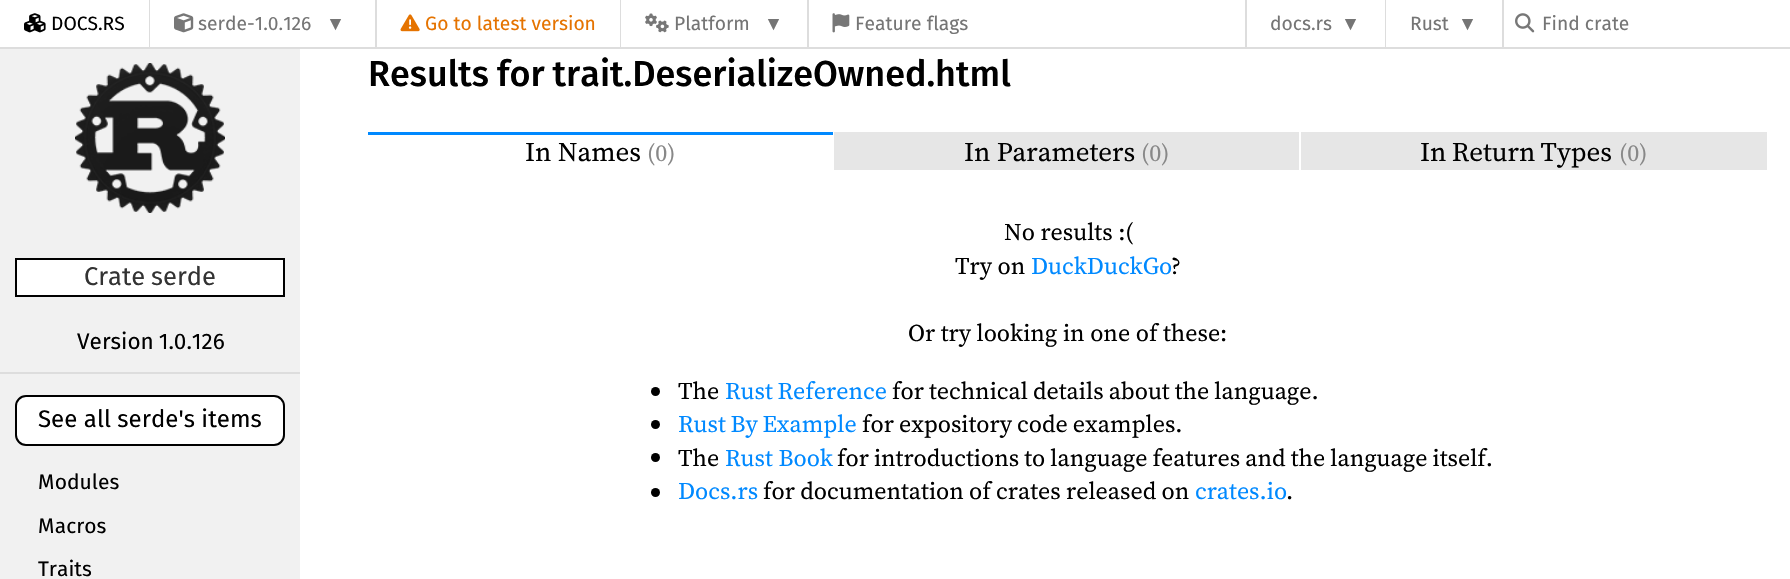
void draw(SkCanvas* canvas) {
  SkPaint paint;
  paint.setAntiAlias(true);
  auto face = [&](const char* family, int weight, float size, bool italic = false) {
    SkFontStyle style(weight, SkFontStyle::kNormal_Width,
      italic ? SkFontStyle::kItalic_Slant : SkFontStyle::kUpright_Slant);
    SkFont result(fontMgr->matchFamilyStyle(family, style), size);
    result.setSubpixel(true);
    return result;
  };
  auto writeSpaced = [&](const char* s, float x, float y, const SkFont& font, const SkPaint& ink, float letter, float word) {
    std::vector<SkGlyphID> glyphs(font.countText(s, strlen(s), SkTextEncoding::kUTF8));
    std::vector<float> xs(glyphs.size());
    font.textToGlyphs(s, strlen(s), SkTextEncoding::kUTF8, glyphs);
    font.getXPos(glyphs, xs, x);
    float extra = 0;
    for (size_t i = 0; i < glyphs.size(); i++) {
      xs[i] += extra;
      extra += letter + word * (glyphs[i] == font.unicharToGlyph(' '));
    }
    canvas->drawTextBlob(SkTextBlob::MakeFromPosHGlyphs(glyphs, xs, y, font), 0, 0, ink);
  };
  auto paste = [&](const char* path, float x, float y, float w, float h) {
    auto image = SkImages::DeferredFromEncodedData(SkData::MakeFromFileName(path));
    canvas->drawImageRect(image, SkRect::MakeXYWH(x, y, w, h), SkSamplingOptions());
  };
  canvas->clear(0xffffffff);
  paint.setColor(0xffdddddd);
  canvas->drawRect(SkRect::MakeXYWH(0, 47, 1790, 2), paint);
  paste("img/1.png", 24, 13, 22, 20);
  canvas->drawRect(SkRect::MakeXYWH(149, 0, 1, 47), paint);
  paste("img/2.png", 174, 13, 20, 20);
  canvas->drawRect(SkRect::MakeXYWH(375, 0, 2, 47), paint);
  paste("img/3.png", 400, 14, 20, 18);
  canvas->drawRect(SkRect::MakeXYWH(620, 0, 1, 47), paint);
  paste("img/4.png", 645, 13, 24, 20);
  canvas->drawRect(SkRect::MakeXYWH(807, 0, 2, 47), paint);
  paste("img/5.png", 832, 13, 18, 20);
  {
    const struct { float x, y, w, h; SkColor color; } items[] = {
      {1245, 0, 2, 47, 0xffdddddd},
      {1385, 0, 1, 47, 0xffdddddd},
      {1502, 0, 2, 47, 0xffdddddd},
    };
    for (auto [x, y, w, h, color] : items) {
      paint.setColor(color);
      canvas->drawRect(SkRect::MakeXYWH(x, y, w, h), paint);
    }
  }
  paste("img/6.png", 1515, 13, 20, 20);
  paint.setColor(0xfff1f1f1);
  canvas->drawRect(SkRect::MakeXYWH(0, 49, 300, 530), paint);
  paste("img/7.png", 75, 63, 150, 150);
  paint.setColor(0xffffffff);
  canvas->drawRect(SkRect::MakeXYWH(16, 259, 268, 37), paint);
  paint.setStroke(true);
  paint.setStrokeWidth(2);
  paint.setColor(0xff000000);
  canvas->drawRect(SkRect::MakeXYWH(16, 259, 268, 37), paint);
  paint.setStroke(false);
  paint.setColor(0xffdddddd);
  canvas->drawRect(SkRect::MakeXYWH(0, 372, 300, 2), paint);
  paint.setColor(0xffffffff);
  canvas->drawRoundRect(SkRect::MakeXYWH(16, 396, 268, 49), 10, 10, paint);
  paint.setStroke(true);
  paint.setColor(0xff000000);
  canvas->drawRoundRect(SkRect::MakeXYWH(16, 396, 268, 49), 10, 10, paint);
  paint.setStroke(false);
  {
    const struct { float x, y, w, h; SkColor color; } items[] = {
      {368, 132, 465, 3, 0xff0089ff},
      {834, 132, 465, 38, 0xffe6e6e6},
      {1301, 132, 466, 38, 0xffe6e6e6},
    };
    for (auto [x, y, w, h, color] : items) {
      paint.setColor(color);
      canvas->drawRect(SkRect::MakeXYWH(x, y, w, h), paint);
    }
  }
  paint.setColor(0xff000000);
  canvas->drawCircle(655.5f, 391.5f, 4.5f, paint);
  canvas->drawCircle(655.5f, 424.5f, 4.5f, paint);
  canvas->drawCircle(655.5f, 457.5f, 4.5f, paint);
  canvas->drawCircle(655.5f, 492.5f, 4.5f, paint);
  auto f0 = face("Fira Sans", 400, 19.25f);
  canvas->drawString("DOCS.RS", 51, 30, f0, paint);
  paint.setColor(0xff757575);
  canvas->drawString("serde-1.0.126", 198, 30, f0, paint);
  auto f1 = face("Liberation Sans", 400, 19.25f);
  canvas->drawString("▼", 326, 30, f1, paint);
  paint.setColor(0xffe57300);
  canvas->drawString("Go to latest version", 425, 30, f0, paint);
  paint.setColor(0xff757575);
  canvas->drawString("Platform", 674, 30, f0, paint);
  canvas->drawString("▼", 764, 30, f1, paint);
  canvas->drawString("Feature flags", 855, 30, f0, paint);
  canvas->drawString("docs.rs", 1270, 30, f0, paint);
  canvas->drawString("▼", 1341, 30, f1, paint);
  canvas->drawString("Rust", 1410, 30, f0, paint);
  canvas->drawString("▼", 1458, 30, f1, paint);
  canvas->drawString("Find crate", 1542, 30, f0, paint);
  auto f2 = face("Fira Sans", 400, 25.5f);
  paint.setColor(0xff333333);
  writeSpaced("Crate serde", 84, 285, f2, paint, 0, -1);
  auto f3 = face("Fira Sans", 400, 22.5f);
  paint.setColor(0xff000000);
  writeSpaced("Version 1.0.126", 77, 349, f3, paint, 0, -1);
  auto f4 = face("Fira Sans", 400, 24);
  canvas->drawString("See all serde's items", 38, 427, f4, paint);
  auto f5 = face("Fira Sans", 400, 21);
  {
    const struct { const char* s; float x, y; } items[] = {
      {"Modules", 38, 489},
      {"Macros", 38, 533},
      {"Traits", 38, 576},
    };
    for (auto [s, x, y] : items) {
      canvas->drawString(s, x, y, f5, paint);
    }
  }
  auto f6 = face("Fira Sans", 500, 36);
  writeSpaced("Results for trait.DeserializeOwned.html", 368, 86, f6, paint, 0, -1);
  auto f7 = face("Source Serif 4", 400, 27);
  canvas->drawString("In Names", 525, 161, f7, paint);
  auto f8 = face("Source Serif 4", 400, 24);
  paint.setColor(0xff888888);
  canvas->drawString("(0)", 647, 161, f8, paint);
  paint.setColor(0xff000000);
  canvas->drawString("In Parameters", 964, 161, f7, paint);
  paint.setColor(0xff888888);
  canvas->drawString("(0)", 1141, 161, f8, paint);
  paint.setColor(0xff000000);
  writeSpaced("In Return Types", 1420, 161, f7, paint, 0, -1);
  paint.setColor(0xff888888);
  canvas->drawString("(0)", 1619, 161, f8, paint);
  paint.setColor(0xff000000);
  canvas->drawString("No results :(", 1004, 240, f8, paint);
  canvas->drawString("Try on", 955, 274, f8, paint);
  paint.setColor(0xff0089ff);
  canvas->drawString("DuckDuckGo", 1031, 274, f8, paint);
  paint.setColor(0xff000000);
  {
    const struct { const char* s; float x, y; } items[] = {
      {"?", 1171, 274},
      {"Or try looking in one of these:", 908, 341},
      {"The", 678, 399},
    };
    for (auto [s, x, y] : items) {
      canvas->drawString(s, x, y, f8, paint);
    }
  }
  paint.setColor(0xff0089ff);
  writeSpaced("Rust Reference", 725, 399, f8, paint, 0, -1);
  paint.setColor(0xff000000);
  writeSpaced("for technical details about the language.", 892, 399, f8, paint, 0, -0.5f);
  paint.setColor(0xff0089ff);
  writeSpaced("Rust By Example", 678, 432, f8, paint, 0, -1);
  paint.setColor(0xff000000);
  writeSpaced("for expository code examples.", 862, 432, f8, paint, 0, -0.5f);
  canvas->drawString("The", 678, 466, f8, paint);
  paint.setColor(0xff0089ff);
  canvas->drawString("Rust Book", 725, 466, f8, paint);
  paint.setColor(0xff000000);
  writeSpaced("for introductions to language features and the language itself.", 837, 466, f8, paint, 0, -0.5f);
  paint.setColor(0xff0089ff);
  canvas->drawString("Docs.rs", 678, 499, f8, paint);
  paint.setColor(0xff000000);
  writeSpaced("for documentation of crates released on", 763, 499, f8, paint, 0, -0.25f);
  paint.setColor(0xff0089ff);
  canvas->drawString("crates.io", 1195, 499, f8, paint);
  paint.setColor(0xff000000);
  canvas->drawString(".", 1286, 499, f8, paint);
}
